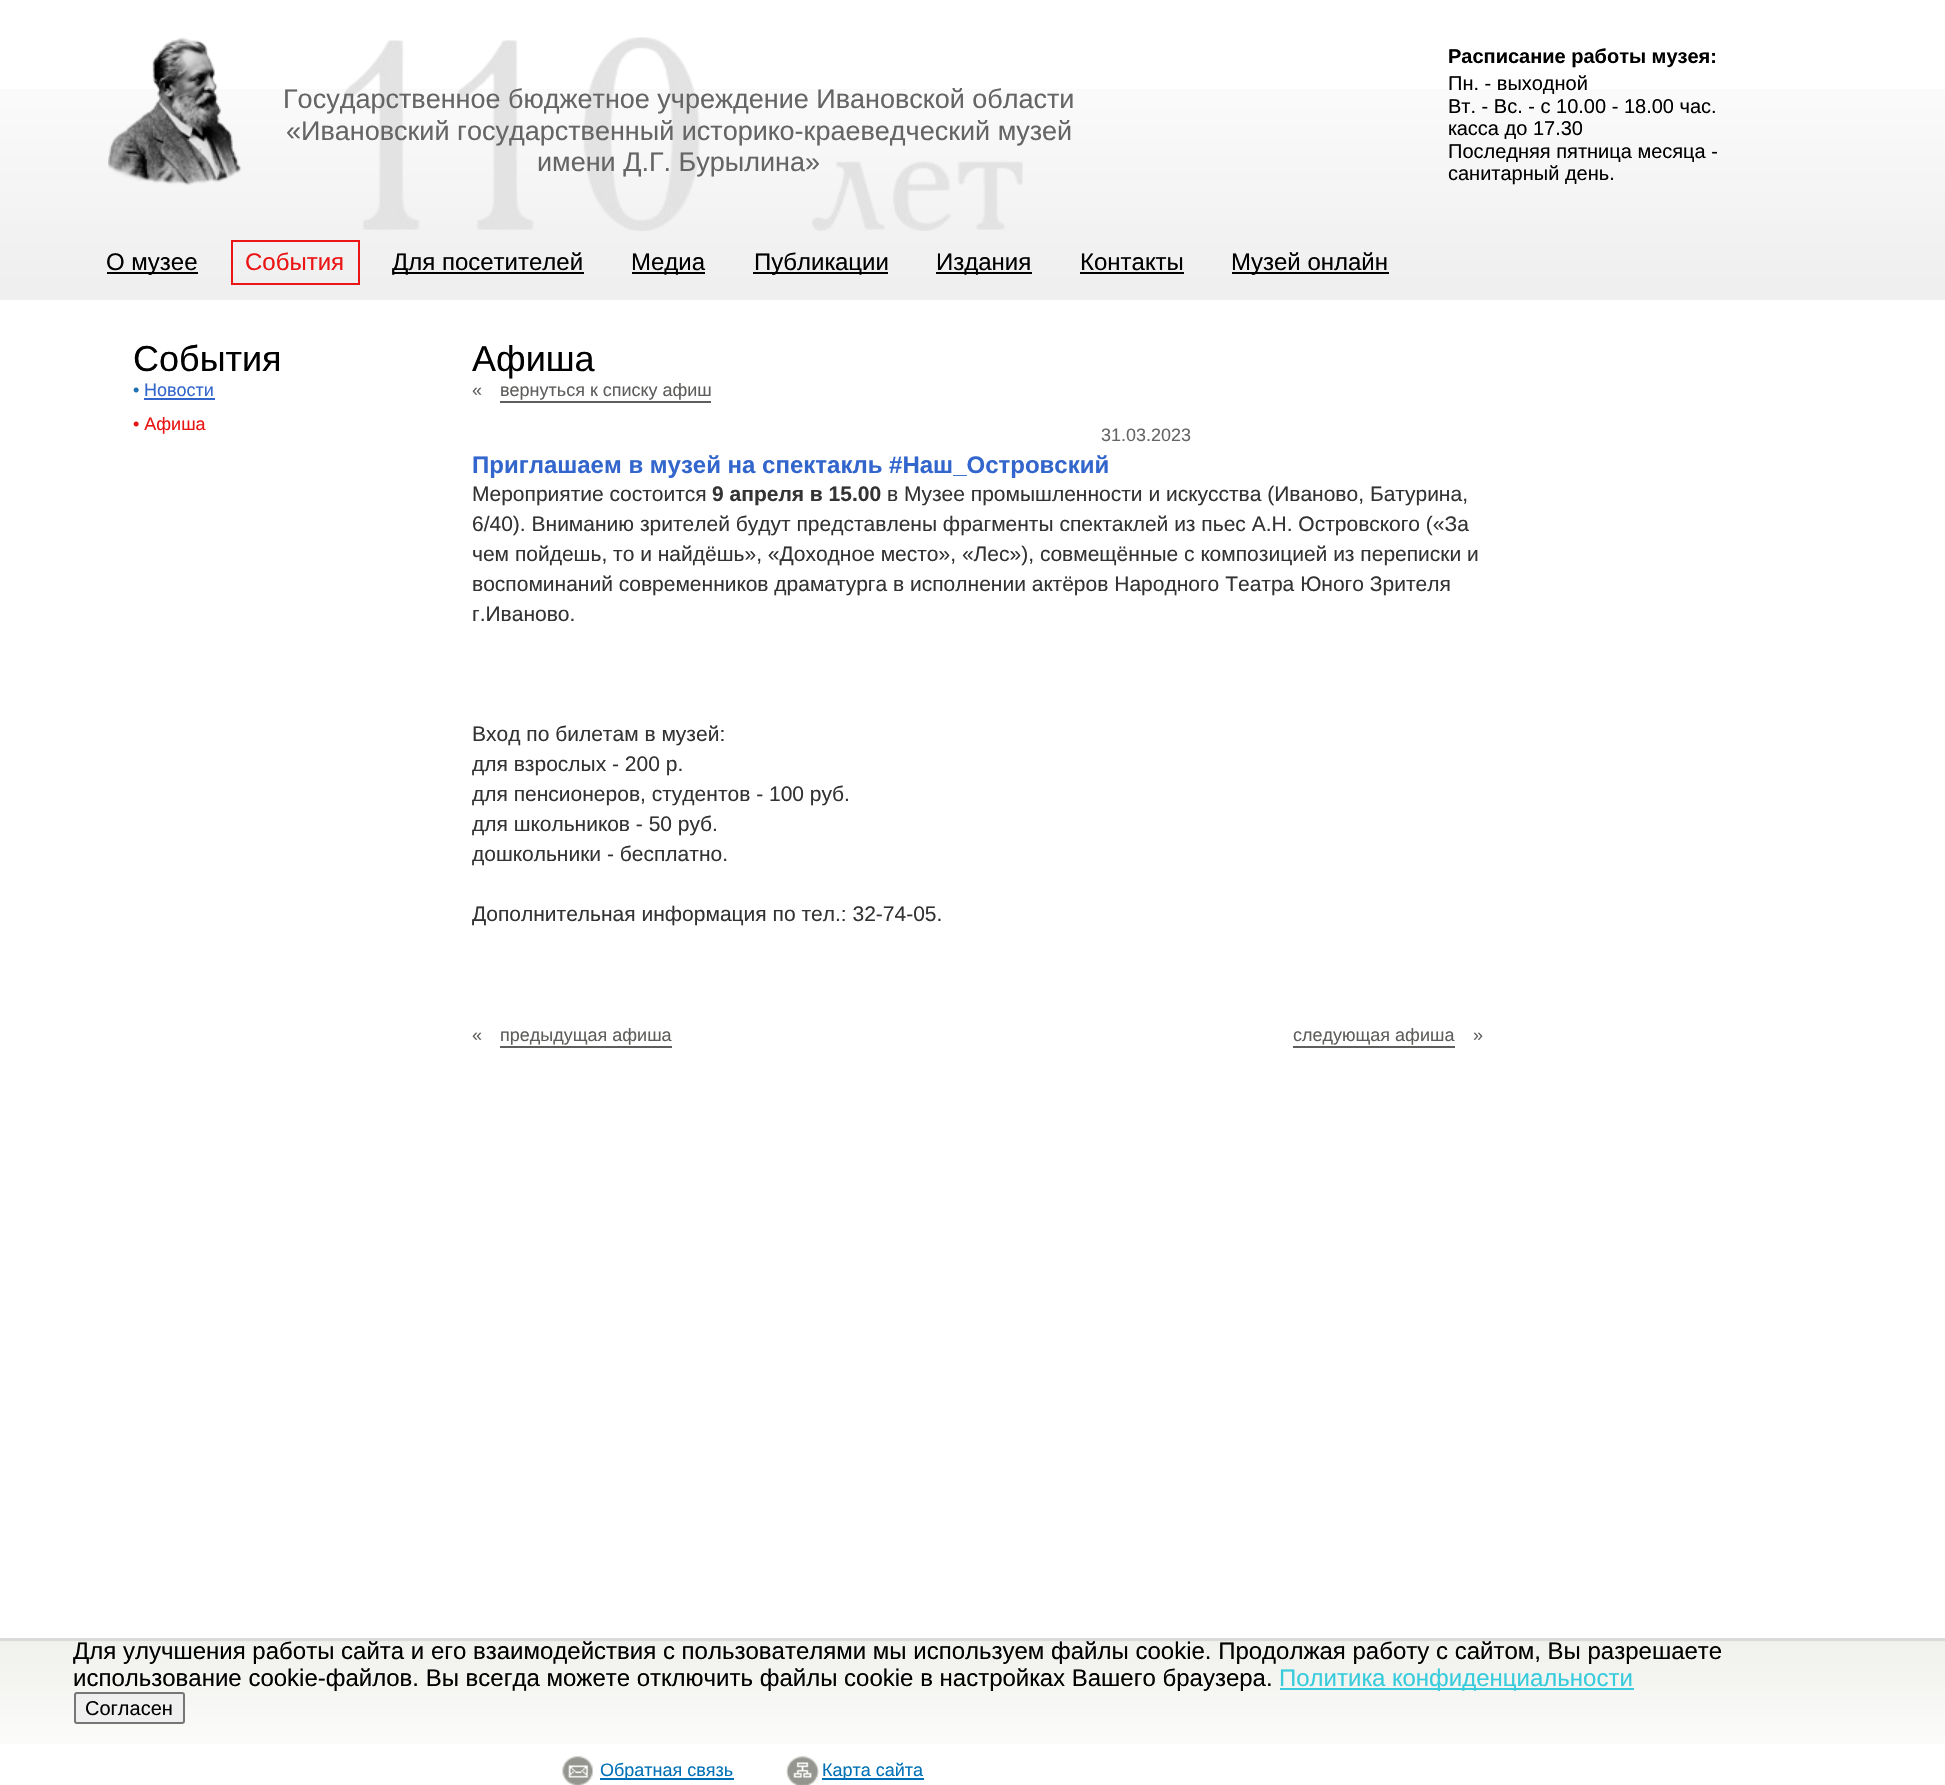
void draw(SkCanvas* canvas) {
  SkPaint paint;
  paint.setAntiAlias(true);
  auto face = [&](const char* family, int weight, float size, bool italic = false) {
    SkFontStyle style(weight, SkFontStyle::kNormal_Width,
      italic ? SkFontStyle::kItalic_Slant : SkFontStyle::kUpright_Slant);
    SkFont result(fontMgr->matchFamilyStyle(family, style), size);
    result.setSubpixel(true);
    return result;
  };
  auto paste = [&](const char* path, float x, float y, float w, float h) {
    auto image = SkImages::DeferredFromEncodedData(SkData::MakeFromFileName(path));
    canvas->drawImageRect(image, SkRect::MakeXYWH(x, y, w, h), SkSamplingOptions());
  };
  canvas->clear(0xffffffff);
  paste("img/1.png", 0, 89, 1945, 211);
  paste("img/2.png", 344, 37, 679, 194);
  paste("img/3.png", 108, 37, 134, 149);
  paint.setColor(0xff000000);
  canvas->drawRect(SkRect::MakeXYWH(107, 272, 91, 2), paint);
  paint.setStroke(true);
  paint.setStrokeWidth(2);
  paint.setColor(0xffea1514);
  canvas->drawRect(SkRect::MakeXYWH(232, 241, 127, 43), paint);
  paint.setStroke(false);
  {
    const struct { float x, y, w, h; SkColor color; } items[] = {
      {393, 272, 191, 2, 0xff000000},
      {632, 272, 73, 2, 0xff000000},
      {753, 272, 135, 2, 0xff000000},
      {936, 272, 96, 2, 0xff000000},
      {1080, 272, 104, 2, 0xff000000},
      {1232, 272, 157, 2, 0xff000000},
      {144, 398, 71, 2, 0xff3366cc},
      {500, 401, 211, 2, 0xff5e5e5c},
      {500, 1046, 172, 2, 0xff5e5e5c},
      {1293, 1046, 162, 2, 0xff5e5e5c},
    };
    for (auto [x, y, w, h, color] : items) {
      paint.setColor(color);
      canvas->drawRect(SkRect::MakeXYWH(x, y, w, h), paint);
    }
  }
  paste("img/4.png", 0, 1638, 1945, 106);
  paint.setColor(0xff37cbdc);
  canvas->drawRect(SkRect::MakeXYWH(1280, 1688, 354, 2), paint);
  paint.setColor(0xffefefef);
  canvas->drawRoundRect(SkRect::MakeXYWH(75, 1693, 109, 30), 2, 2, paint);
  paint.setStroke(true);
  paint.setColor(0xff767676);
  canvas->drawRoundRect(SkRect::MakeXYWH(75, 1693, 109, 30), 2, 2, paint);
  paste("img/5.png", 562, 1756, 32, 29);
  paint.setStroke(false);
  paint.setColor(0xff0071b6);
  canvas->drawRect(SkRect::MakeXYWH(600, 1778, 134, 2), paint);
  paste("img/6.png", 786, 1756, 33, 29);
  canvas->drawRect(SkRect::MakeXYWH(822, 1778, 102, 2), paint);
  auto f0 = face("Liberation Sans", 400, 27);
  paint.setColor(0xff656565);
  {
    const struct { const char* s; float x, y; } items[] = {
      {"Государственное бюджетное учреждение Ивановской области", 283, 108},
      {"«Ивановский государственный историко-краеведческий музей", 286, 140},
      {"имени Д.Г. Бурылина»", 537, 171},
    };
    for (auto [s, x, y] : items) {
      canvas->drawString(s, x, y, f0, paint);
    }
  }
  auto f1 = face("Liberation Sans", 700, 20);
  paint.setColor(0xff000000);
  canvas->drawString("Расписание работы музея:", 1448, 63, f1, paint);
  auto f2 = face("Liberation Sans", 400, 20);
  {
    const struct { const char* s; float x, y; } items[] = {
      {"Пн. - выходной", 1448, 90},
      {"Вт. - Вс. - с 10.00 - 18.00 час.", 1448, 113},
      {"касса до 17.30", 1448, 135},
      {"Последняя пятница месяца -", 1448, 158},
      {"санитарный день.", 1448, 180},
    };
    for (auto [s, x, y] : items) {
      canvas->drawString(s, x, y, f2, paint);
    }
  }
  auto f3 = face("Liberation Sans", 400, 24);
  canvas->drawString("О музее", 106, 270, f3, paint);
  paint.setColor(0xffea1514);
  canvas->drawString("События", 245, 270, f3, paint);
  paint.setColor(0xff000000);
  {
    const struct { const char* s; float x, y; } items[] = {
      {"Для посетителей", 392, 270},
      {"Медиа", 631, 270},
      {"Публикации", 754, 270},
      {"Издания", 936, 270},
      {"Контакты", 1080, 270},
      {"Музей онлайн", 1231, 270},
    };
    for (auto [s, x, y] : items) {
      canvas->drawString(s, x, y, f3, paint);
    }
  }
  auto f4 = face("Liberation Sans", 400, 36);
  canvas->drawString("События", 133, 371, f4, paint);
  auto f5 = face("Liberation Sans", 400, 18);
  paint.setColor(0xff1c70b3);
  canvas->drawString("•", 133, 396, f5, paint);
  paint.setColor(0xff3366cc);
  canvas->drawString("Новости", 144, 396, f5, paint);
  paint.setColor(0xffea1514);
  canvas->drawString("• Афиша", 133, 430, f5, paint);
  paint.setColor(0xff000000);
  canvas->drawString("Афиша", 472, 371, f4, paint);
  paint.setColor(0xff5e5e5c);
  canvas->drawString("«", 472, 396, f5, paint);
  canvas->drawString("вернуться к списку афиш", 500, 396, f5, paint);
  paint.setColor(0xff656565);
  canvas->drawString("31.03.2023", 1101, 441, f5, paint);
  auto f6 = face("Liberation Sans", 700, 24);
  paint.setColor(0xff3366cc);
  canvas->drawString("Приглашаем в музей на спектакль #Наш_Островский", 472, 473, f6, paint);
  auto f7 = face("Liberation Sans", 400, 21);
  paint.setColor(0xff333333);
  canvas->drawString("Мероприятие состоится", 472, 501, f7, paint);
  auto f8 = face("Liberation Sans", 700, 21);
  canvas->drawString("9 апреля в 15.00", 712, 501, f8, paint);
  {
    const struct { const char* s; float x, y; } items[] = {
      {"в Музее промышленности и искусства (Иваново, Батурина,", 887, 501},
      {"6/40). Вниманию зрителей будут представлены фрагменты спектаклей из пьес А.Н. Островского («За", 472, 531},
      {"чем пойдешь, то и найдёшь», «Доходное место», «Лес»), совмещённые с композицией из переписки и", 472, 561},
      {"воспоминаний современников драматурга в исполнении актёров Народного Театра Юного Зрителя", 472, 591},
      {"г.Иваново.", 472, 621},
      {"Вход по билетам в музей:", 472, 741},
      {"для взрослых - 200 р.", 472, 771},
      {"для пенсионеров, студентов - 100 руб.", 472, 801},
      {"для школьников - 50 руб.", 472, 831},
      {"дошкольники - бесплатно.", 472, 861},
      {"Дополнительная информация по тел.: 32-74-05.", 472, 921},
    };
    for (auto [s, x, y] : items) {
      canvas->drawString(s, x, y, f7, paint);
    }
  }
  paint.setColor(0xff5e5e5c);
  {
    const struct { const char* s; float x, y; } items[] = {
      {"«", 472, 1041},
      {"предыдущая афиша", 500, 1041},
      {"следующая афиша", 1293, 1041},
      {"»", 1473, 1041},
    };
    for (auto [s, x, y] : items) {
      canvas->drawString(s, x, y, f5, paint);
    }
  }
  paint.setColor(0xff000000);
  canvas->drawString("Для улучшения работы сайта и его взаимодействия с пользователями мы используем файлы cookie. Продолжая работу с сайтом, Вы разрешаете", 73, 1659, f3, paint);
  canvas->drawString("использование cookie-файлов. Вы всегда можете отключить файлы cookie в настройках Вашего браузера.", 73, 1686, f3, paint);
  paint.setColor(0xff37cbdc);
  canvas->drawString("Политика конфиденциальности", 1279, 1686, f3, paint);
  paint.setColor(0xff000000);
  canvas->drawString("Согласен", 85, 1715, f2, paint);
  paint.setColor(0xff0071b6);
  canvas->drawString("Обратная связь", 600, 1776, f5, paint);
  canvas->drawString("Карта сайта", 822, 1776, f5, paint);
}
